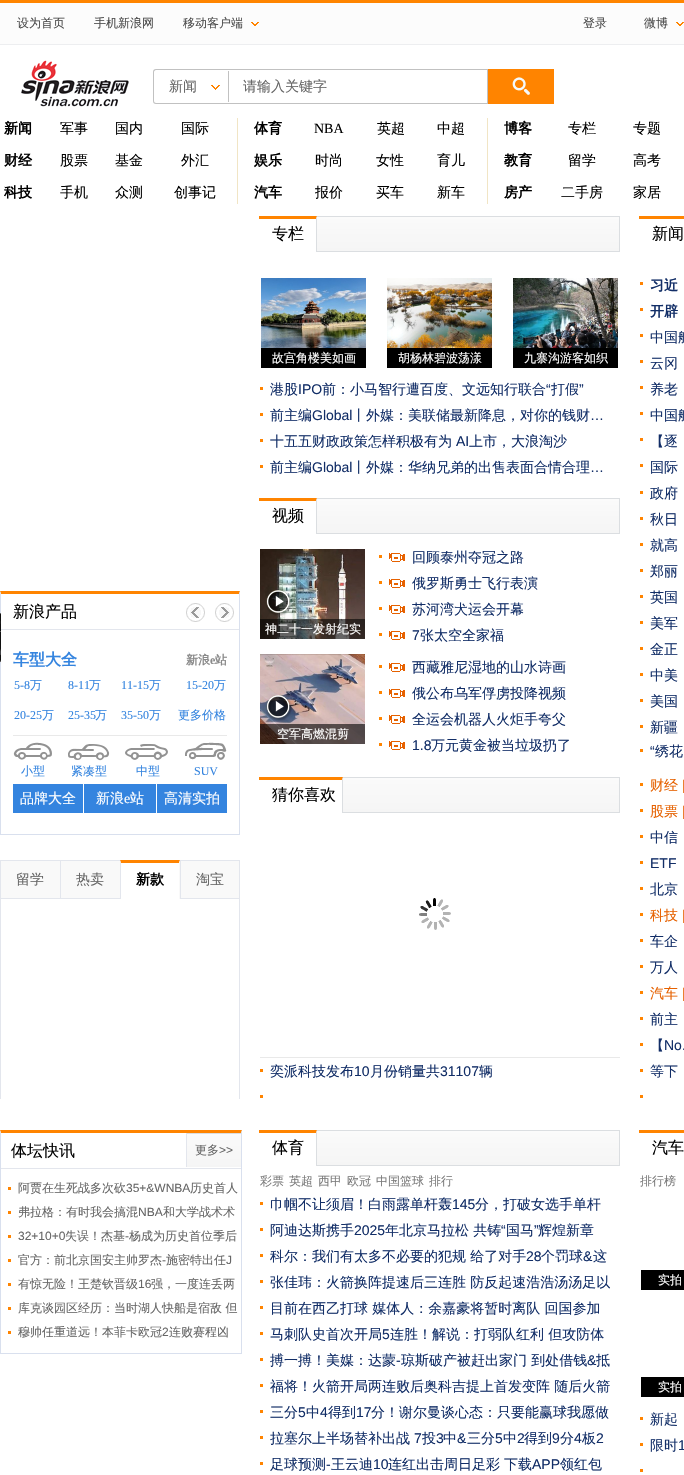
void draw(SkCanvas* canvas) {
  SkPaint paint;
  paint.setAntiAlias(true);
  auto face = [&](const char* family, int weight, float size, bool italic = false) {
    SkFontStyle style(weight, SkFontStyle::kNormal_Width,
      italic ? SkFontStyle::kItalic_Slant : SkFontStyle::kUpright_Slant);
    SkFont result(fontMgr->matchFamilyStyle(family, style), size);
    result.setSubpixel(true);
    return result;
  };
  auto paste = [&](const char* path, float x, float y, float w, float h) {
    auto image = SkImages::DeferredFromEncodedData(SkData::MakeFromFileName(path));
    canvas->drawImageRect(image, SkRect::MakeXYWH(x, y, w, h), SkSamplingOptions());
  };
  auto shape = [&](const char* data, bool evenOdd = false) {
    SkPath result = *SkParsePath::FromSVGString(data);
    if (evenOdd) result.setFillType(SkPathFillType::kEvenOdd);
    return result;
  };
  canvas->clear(0xffffffff);
  {
    const struct { float x, y, w, h; SkColor color; } items[] = {
      {0, 3, 684, 41, 0xfffcfcfc},
      {0, 0, 684, 3, 0xffff8500},
      {0, 44, 684, 1, 0xffedeef0},
    };
    for (auto [x, y, w, h, color] : items) {
      paint.setColor(color);
      canvas->drawRect(SkRect::MakeXYWH(x, y, w, h), paint);
    }
  }
  paste("img/1.png", 251, 22, 8, 4);
  paste("img/1.png", 676, 22, 8, 4);
  paste("img/2.png", 21, 60, 108, 47);
  paint.setColor(0xffc1c1c1);
  canvas->drawRect(SkRect::MakeXYWH(228, 71, 1, 31), paint);
  canvas->drawPath(shape("M156 69H229V104H156C154 104 153 103 153 101V72C153 70 154 69 156 69ZM156 70H229V103H156C155 103 154 102 154 101V72C154 71 155 70 156 70Z", true), paint);
  paste("img/3.png", 211, 85, 9, 5);
  {
    const struct { float x, y, w, h; SkColor color; } items[] = {
      {229, 69, 259, 1, 0xffc1c1c1},
      {487, 69, 1, 35, 0xffc1c1c1},
      {229, 103, 259, 1, 0xffc1c1c1},
      {488, 69, 66, 35, 0xffff8400},
    };
    for (auto [x, y, w, h, color] : items) {
      paint.setColor(color);
      canvas->drawRect(SkRect::MakeXYWH(x, y, w, h), paint);
    }
  }
  paste("img/4.png", 512, 77, 18, 18);
  paint.setColor(0xfff1e5c5);
  canvas->drawRect(SkRect::MakeXYWH(237, 118, 1, 86), paint);
  canvas->drawRect(SkRect::MakeXYWH(487, 118, 1, 86), paint);
  paint.setColor(0xffff8400);
  canvas->drawPath(shape("M0 591H240L239 594H1Z"), paint);
  paint.setColor(0xffd9e0ee);
  canvas->drawPath(shape("M240 591V835L239 834V594Z"), paint);
  canvas->drawRect(SkRect::MakeXYWH(0, 834, 240, 1), paint);
  canvas->drawPath(shape("M0 835V591L1 594V834Z"), paint);
  paint.setColor(0xffe3e6ed);
  canvas->drawRect(SkRect::MakeXYWH(1, 629, 238, 1), paint);
  paste("img/5.png", 186, 603, 19, 19);
  paste("img/6.png", 215, 603, 19, 19);
  paste("img/7.png", 0, 613, 1, 49);
  paint.setColor(0xffe9e9e9);
  canvas->drawRect(SkRect::MakeXYWH(13, 735, 214, 1), paint);
  paste("img/8.png", 13, 742, 39, 18);
  paste("img/9.png", 68, 744, 42, 17);
  paste("img/10.png", 125, 744, 43, 16);
  paste("img/11.png", 185, 742, 42, 18);
  {
    const struct { float x, y, w, h; SkColor color; } items[] = {
      {13, 784, 70, 29, 0xff3484df},
      {84, 784, 72, 29, 0xff3484df},
      {157, 784, 70, 29, 0xff3484df},
      {0, 860, 240, 1, 0xffe3e6ed},
      {0, 898, 240, 1, 0xffe3e6ed},
      {1, 861, 59, 37, 0xfff9f9f9},
      {0, 861, 1, 37, 0xffe3e6ed},
      {61, 861, 59, 37, 0xfff9f9f9},
      {60, 861, 1, 37, 0xffe3e6ed},
      {120, 860, 60, 39, 0xffffffff},
    };
    for (auto [x, y, w, h, color] : items) {
      paint.setColor(color);
      canvas->drawRect(SkRect::MakeXYWH(x, y, w, h), paint);
    }
  }
  paint.setColor(0xffff8400);
  canvas->drawPath(shape("M120 860H180L179 863H121Z"), paint);
  paint.setColor(0xfff9f9f9);
  canvas->drawPath(shape("M180 860V899H179V863Z"), paint);
  paint.setColor(0xffe3e6ed);
  canvas->drawPath(shape("M120 899V860L121 863V899Z"), paint);
  {
    const struct { float x, y, w, h; SkColor color; } items[] = {
      {181, 861, 58, 37, 0xfff9f9f9},
      {239, 861, 1, 37, 0xffe3e6ed},
      {180, 861, 1, 37, 0xffe3e6ed},
      {239, 899, 1, 200, 0xffe3e6ed},
      {0, 899, 1, 200, 0xffe3e6ed},
    };
    for (auto [x, y, w, h, color] : items) {
      paint.setColor(color);
      canvas->drawRect(SkRect::MakeXYWH(x, y, w, h), paint);
    }
  }
  paste("img/12.png", 317, 217, 302, 34);
  paint.setStroke(true);
  paint.setStrokeWidth(1);
  paint.setColor(0xffdbdee1);
  canvas->drawRect(SkRect::MakeXYWH(260.5f, 216.5f, 359, 35), paint);
  paint.setStroke(false);
  paint.setColor(0xffffffff);
  canvas->drawRect(SkRect::MakeXYWH(260, 216, 57, 36), paint);
  paint.setColor(0xffff8400);
  canvas->drawPath(shape("M259 216H317L316 219H259Z"), paint);
  paint.setColor(0xffdbdee1);
  canvas->drawPath(shape("M317 216V252H316V219Z"), paint);
  paste("img/13.png", 261, 278, 105, 70);
  paint.setColor(0xff000000);
  canvas->drawRect(SkRect::MakeXYWH(261, 348, 105, 20), paint);
  paste("img/14.png", 387, 278, 105, 70);
  canvas->drawRect(SkRect::MakeXYWH(387, 348, 105, 20), paint);
  paste("img/15.png", 513, 278, 105, 70);
  {
    const struct { float x, y, w, h; SkColor color; } items[] = {
      {513, 348, 105, 20, 0xff000000},
      {260, 387, 3, 3, 0xffff8400},
      {260, 413, 3, 3, 0xffff8400},
      {260, 439, 3, 3, 0xffff8400},
      {260, 465, 3, 3, 0xffff8400},
    };
    for (auto [x, y, w, h, color] : items) {
      paint.setColor(color);
      canvas->drawRect(SkRect::MakeXYWH(x, y, w, h), paint);
    }
  }
  paste("img/12.png", 317, 499, 302, 34);
  paint.setStroke(true);
  paint.setColor(0xffdbdee1);
  canvas->drawRect(SkRect::MakeXYWH(260.5f, 498.5f, 359, 35), paint);
  paint.setStroke(false);
  paint.setColor(0xffffffff);
  canvas->drawRect(SkRect::MakeXYWH(260, 498, 57, 36), paint);
  paint.setColor(0xffff8400);
  canvas->drawPath(shape("M259 498H317L316 501H259Z"), paint);
  paint.setColor(0xffdbdee1);
  canvas->drawPath(shape("M317 498V534H316V501Z"), paint);
  paste("img/16.png", 260, 549, 105, 90);
  paste("img/17.png", 266, 590, 26, 26);
  paint.setColor(0x99000000);
  canvas->drawRect(SkRect::MakeXYWH(260, 619, 105, 20), paint);
  paint.setColor(0xffff8400);
  canvas->drawRect(SkRect::MakeXYWH(379, 555, 3, 3), paint);
  paste("img/18.png", 389, 553, 16, 9);
  canvas->drawRect(SkRect::MakeXYWH(379, 581, 3, 3), paint);
  paste("img/18.png", 389, 579, 16, 9);
  canvas->drawRect(SkRect::MakeXYWH(379, 607, 3, 3), paint);
  paste("img/18.png", 389, 605, 16, 9);
  canvas->drawRect(SkRect::MakeXYWH(379, 633, 3, 3), paint);
  paste("img/18.png", 389, 631, 16, 9);
  paste("img/19.png", 260, 654, 105, 90);
  paste("img/20.png", 266, 695, 26, 26);
  paint.setColor(0x99000000);
  canvas->drawRect(SkRect::MakeXYWH(260, 724, 105, 20), paint);
  paint.setColor(0xffff8400);
  canvas->drawRect(SkRect::MakeXYWH(379, 665, 3, 3), paint);
  paste("img/18.png", 389, 663, 16, 9);
  canvas->drawRect(SkRect::MakeXYWH(379, 691, 3, 3), paint);
  paste("img/18.png", 389, 689, 16, 9);
  canvas->drawRect(SkRect::MakeXYWH(379, 717, 3, 3), paint);
  paste("img/18.png", 389, 715, 16, 9);
  canvas->drawRect(SkRect::MakeXYWH(379, 743, 3, 3), paint);
  paste("img/18.png", 389, 741, 16, 9);
  paste("img/21.png", 343, 778, 276, 34);
  paint.setStroke(true);
  paint.setColor(0xffdbdee1);
  canvas->drawRect(SkRect::MakeXYWH(260.5f, 777.5f, 359, 35), paint);
  paint.setStroke(false);
  paint.setColor(0xffffffff);
  canvas->drawRect(SkRect::MakeXYWH(260, 777, 83, 36), paint);
  paint.setColor(0xffff8400);
  canvas->drawPath(shape("M259 777H343L342 780H259Z"), paint);
  paint.setColor(0xffdbdee1);
  canvas->drawPath(shape("M343 777V813H342V780Z"), paint);
  paste("img/22.png", 419, 898, 32, 32);
  {
    const struct { float x, y, w, h; SkColor color; } items[] = {
      {260, 1057, 360, 1, 0xffe9e9e9},
      {260, 1069, 3, 3, 0xffff8400},
      {260, 1095, 3, 3, 0xffff8400},
    };
    for (auto [x, y, w, h, color] : items) {
      paint.setColor(color);
      canvas->drawRect(SkRect::MakeXYWH(x, y, w, h), paint);
    }
  }
  canvas->drawPath(shape("M639 216H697L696 219H639Z"), paint);
  {
    const struct { float x, y, w, h; SkColor color; } items[] = {
      {640, 282, 3, 3, 0xffff8303},
      {640, 308, 3, 3, 0xffff8303},
      {640, 334, 3, 3, 0xffff8303},
      {640, 360, 3, 3, 0xffff8303},
      {640, 386, 3, 3, 0xffff8303},
      {640, 412, 3, 3, 0xffff8303},
      {640, 438, 3, 3, 0xffff8303},
      {640, 464, 3, 3, 0xffff8303},
      {640, 491, 3, 3, 0xffff8400},
      {640, 517, 3, 3, 0xffff8400},
      {640, 543, 3, 3, 0xffff8400},
      {640, 569, 3, 3, 0xffff8400},
      {640, 595, 3, 3, 0xffff8400},
      {640, 621, 3, 3, 0xffff8400},
      {640, 647, 3, 3, 0xffff8400},
      {640, 673, 3, 3, 0xffff8400},
      {640, 699, 3, 3, 0xffff8400},
      {640, 725, 3, 3, 0xffff8400},
      {640, 749, 3, 3, 0xffff8400},
      {640, 783, 3, 3, 0xffff8400},
      {640, 809, 3, 3, 0xffff8400},
      {640, 835, 3, 3, 0xffff8400},
      {640, 861, 3, 3, 0xffff8400},
      {640, 887, 3, 3, 0xffff8400},
      {640, 913, 3, 3, 0xffff8400},
      {640, 939, 3, 3, 0xffff8400},
      {640, 965, 3, 3, 0xffff8400},
      {640, 991, 3, 3, 0xffff8400},
      {640, 1017, 3, 3, 0xffff8400},
      {640, 1043, 3, 3, 0xffff8400},
      {640, 1069, 3, 3, 0xffff8400},
      {640, 1095, 3, 3, 0xffff8400},
    };
    for (auto [x, y, w, h, color] : items) {
      paint.setColor(color);
      canvas->drawRect(SkRect::MakeXYWH(x, y, w, h), paint);
    }
  }
  canvas->drawPath(shape("M0 1130H242L241 1133H1Z"), paint);
  paint.setColor(0xffd9e0ee);
  canvas->drawPath(shape("M242 1130V1354L241 1353V1133Z"), paint);
  canvas->drawRect(SkRect::MakeXYWH(0, 1353, 242, 1), paint);
  canvas->drawPath(shape("M0 1354V1130L1 1133V1353Z"), paint);
  paint.setColor(0xffe3e6ed);
  canvas->drawRect(SkRect::MakeXYWH(1, 1168, 240, 1), paint);
  paste("img/23.png", 187, 1133, 54, 34);
  {
    const struct { float x, y, w, h; SkColor color; } items[] = {
      {186, 1133, 1, 34, 0xffe3e6ed},
      {8, 1187, 3, 3, 0xffff8400},
      {8, 1211, 3, 3, 0xffff8400},
      {8, 1235, 3, 3, 0xffff8400},
      {8, 1259, 3, 3, 0xffff8400},
      {8, 1283, 3, 3, 0xffff8400},
      {8, 1307, 3, 3, 0xffff8400},
      {8, 1331, 3, 3, 0xffff8400},
    };
    for (auto [x, y, w, h, color] : items) {
      paint.setColor(color);
      canvas->drawRect(SkRect::MakeXYWH(x, y, w, h), paint);
    }
  }
  paste("img/12.png", 317, 1131, 302, 34);
  paint.setStroke(true);
  paint.setColor(0xffdbdee1);
  canvas->drawRect(SkRect::MakeXYWH(260.5f, 1130.5f, 359, 35), paint);
  paint.setStroke(false);
  paint.setColor(0xffffffff);
  canvas->drawRect(SkRect::MakeXYWH(260, 1130, 57, 36), paint);
  paint.setColor(0xffff8400);
  canvas->drawPath(shape("M259 1130H317L316 1133H259Z"), paint);
  paint.setColor(0xffdbdee1);
  canvas->drawPath(shape("M317 1130V1166H316V1133Z"), paint);
  {
    const struct { float x, y, w, h; SkColor color; } items[] = {
      {260, 1202, 3, 3, 0xffff8400},
      {260, 1228, 3, 3, 0xffff8400},
      {260, 1254, 3, 3, 0xffff8400},
      {260, 1280, 3, 3, 0xffff8400},
      {260, 1306, 3, 3, 0xffff8400},
      {260, 1332, 3, 3, 0xffff8400},
      {260, 1358, 3, 3, 0xffff8400},
      {260, 1384, 3, 3, 0xffff8400},
      {260, 1410, 3, 3, 0xffff8400},
      {260, 1436, 3, 3, 0xffff8400},
      {260, 1462, 3, 3, 0xffff8400},
    };
    for (auto [x, y, w, h, color] : items) {
      paint.setColor(color);
      canvas->drawRect(SkRect::MakeXYWH(x, y, w, h), paint);
    }
  }
  canvas->drawPath(shape("M639 1130H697L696 1133H639Z"), paint);
  {
    const struct { float x, y, w, h; SkColor color; } items[] = {
      {641, 1270, 43, 20, 0xff000000},
      {641, 1377, 43, 20, 0xff000000},
      {640, 1417, 3, 3, 0xffff8400},
      {640, 1443, 3, 3, 0xffff8400},
      {640, 1469, 3, 3, 0xffff8400},
    };
    for (auto [x, y, w, h, color] : items) {
      paint.setColor(color);
      canvas->drawRect(SkRect::MakeXYWH(x, y, w, h), paint);
    }
  }
  auto f0 = face("WenQuanYi Zen Hei", 500, 12);
  paint.setColor(0xff4c4c4c);
  {
    const struct { const char* s; float x, y; } items[] = {
      {"设为首页", 17, 27},
      {"手机新浪网", 94, 27},
      {"移动客户端", 183, 27},
      {"登录", 583, 27},
      {"微博", 644, 27},
    };
    for (auto [s, x, y] : items) {
      canvas->drawString(s, x, y, f0, paint);
    }
  }
  auto f1 = face("WenQuanYi Zen Hei", 500, 14);
  paint.setColor(0xff666666);
  canvas->drawString("新闻", 169, 91, f1, paint);
  canvas->drawString("请输入关键字", 243, 91, f1, paint);
  auto f2 = face("WenQuanYi Zen Hei", 700, 14);
  paint.setColor(0xff000000);
  canvas->drawString("新闻", 4, 133, f2, paint);
  {
    const struct { const char* s; float x, y; } items[] = {
      {"军事", 60, 133},
      {"国内", 115, 133},
      {"国际", 181, 133},
    };
    for (auto [s, x, y] : items) {
      canvas->drawString(s, x, y, f1, paint);
    }
  }
  canvas->drawString("财经", 4, 165, f2, paint);
  {
    const struct { const char* s; float x, y; } items[] = {
      {"股票", 60, 165},
      {"基金", 115, 165},
      {"外汇", 181, 165},
    };
    for (auto [s, x, y] : items) {
      canvas->drawString(s, x, y, f1, paint);
    }
  }
  canvas->drawString("科技", 4, 197, f2, paint);
  {
    const struct { const char* s; float x, y; } items[] = {
      {"手机", 60, 197},
      {"众测", 115, 197},
      {"创事记", 174, 197},
    };
    for (auto [s, x, y] : items) {
      canvas->drawString(s, x, y, f1, paint);
    }
  }
  canvas->drawString("体育", 254, 133, f2, paint);
  auto f3 = face("Liberation Serif", 400, 14);
  canvas->drawString("NBA", 314, 133, f3, paint);
  canvas->drawString("英超", 377, 133, f1, paint);
  canvas->drawString("中超", 437, 133, f1, paint);
  canvas->drawString("娱乐", 254, 165, f2, paint);
  {
    const struct { const char* s; float x, y; } items[] = {
      {"时尚", 315, 165},
      {"女性", 376, 165},
      {"育儿", 437, 165},
    };
    for (auto [s, x, y] : items) {
      canvas->drawString(s, x, y, f1, paint);
    }
  }
  canvas->drawString("汽车", 254, 197, f2, paint);
  {
    const struct { const char* s; float x, y; } items[] = {
      {"报价", 315, 197},
      {"买车", 376, 197},
      {"新车", 437, 197},
    };
    for (auto [s, x, y] : items) {
      canvas->drawString(s, x, y, f1, paint);
    }
  }
  canvas->drawString("博客", 504, 133, f2, paint);
  canvas->drawString("专栏", 568, 133, f1, paint);
  canvas->drawString("专题", 633, 133, f1, paint);
  canvas->drawString("教育", 504, 165, f2, paint);
  canvas->drawString("留学", 568, 165, f1, paint);
  canvas->drawString("高考", 633, 165, f1, paint);
  canvas->drawString("房产", 504, 197, f2, paint);
  canvas->drawString("二手房", 561, 197, f1, paint);
  canvas->drawString("家居", 633, 197, f1, paint);
  auto f4 = face("WenQuanYi Zen Hei", 500, 16);
  canvas->drawString("新浪产品", 13, 617, f4, paint);
  auto f5 = face("WenQuanYi Zen Hei", 700, 16);
  paint.setColor(0xff3484df);
  canvas->drawString("车型大全", 13, 665, f5, paint);
  auto f6 = face("WenQuanYi Zen Hei", 700, 12);
  paint.setColor(0xff8a8a8a);
  canvas->drawString("新浪", 186, 664, f6, paint);
  auto f7 = face("Liberation Serif", 700, 12);
  canvas->drawString("e", 210, 664, f7, paint);
  canvas->drawString("站", 215, 664, f6, paint);
  auto f8 = face("Liberation Serif", 400, 12);
  paint.setColor(0xff3484df);
  canvas->drawString("5-8", 14, 689, f8, paint);
  canvas->drawString("万", 30, 689, f0, paint);
  canvas->drawString("8-11", 68, 689, f8, paint);
  canvas->drawString("万", 89, 689, f0, paint);
  canvas->drawString("11-15", 121, 689, f8, paint);
  canvas->drawString("万", 149, 689, f0, paint);
  canvas->drawString("15-20", 186, 689, f8, paint);
  canvas->drawString("万", 214, 689, f0, paint);
  canvas->drawString("20-25", 14, 719, f8, paint);
  canvas->drawString("万", 42, 719, f0, paint);
  canvas->drawString("25-35", 68, 719, f8, paint);
  canvas->drawString("万", 95, 719, f0, paint);
  canvas->drawString("35-50", 121, 719, f8, paint);
  {
    const struct { const char* s; float x, y; } items[] = {
      {"万", 149, 719},
      {"更多价格", 178, 719},
      {"小型", 21, 775},
      {"紧凑型", 71, 775},
      {"中型", 136, 775},
    };
    for (auto [s, x, y] : items) {
      canvas->drawString(s, x, y, f0, paint);
    }
  }
  canvas->drawString("SUV", 194, 775, f8, paint);
  paint.setColor(0xffffffff);
  canvas->drawString("品牌大全", 20, 803, f1, paint);
  canvas->drawString("新浪", 96, 803, f1, paint);
  canvas->drawString("e", 124, 803, f3, paint);
  canvas->drawString("站", 130, 803, f1, paint);
  canvas->drawString("高清实拍", 164, 803, f1, paint);
  paint.setColor(0xff666666);
  canvas->drawString("留学", 16, 884, f1, paint);
  canvas->drawString("热卖", 76, 884, f1, paint);
  paint.setColor(0xff000000);
  canvas->drawString("新款", 136, 884, f2, paint);
  paint.setColor(0xff666666);
  canvas->drawString("淘宝", 196, 884, f1, paint);
  paint.setColor(0xff000000);
  canvas->drawString("专栏", 272, 239, f4, paint);
  paint.setColor(0xffffffff);
  {
    const struct { const char* s; float x, y; } items[] = {
      {"故宫角楼美如画", 272, 362},
      {"胡杨林碧波荡漾", 398, 362},
      {"九寨沟游客如织", 524, 362},
    };
    for (auto [s, x, y] : items) {
      canvas->drawString(s, x, y, f0, paint);
    }
  }
  paint.setColor(0xff122e67);
  canvas->drawString("港股", 270, 394, f1, paint);
  auto f9 = face("Liberation Sans", 400, 14);
  canvas->drawString("IPO", 298, 394, f9, paint);
  canvas->drawString("前：小马智行遭百度、文远知行联合", 322, 394, f1, paint);
  canvas->drawString("“", 546, 394, f9, paint);
  canvas->drawString("打假", 551, 394, f1, paint);
  canvas->drawString("”", 579, 394, f9, paint);
  canvas->drawString("前主编", 270, 420, f1, paint);
  canvas->drawString("Global", 312, 420, f9, paint);
  canvas->drawString("丨外媒：美联储最新降息，对你的钱财", 352, 420, f1, paint);
  canvas->drawString("…", 590, 420, f9, paint);
  canvas->drawString("十五五财政政策怎样积极有为", 270, 446, f1, paint);
  canvas->drawString("AI", 456, 446, f9, paint);
  canvas->drawString("上市，大浪淘沙", 469, 446, f1, paint);
  canvas->drawString("前主编", 270, 472, f1, paint);
  canvas->drawString("Global", 312, 472, f9, paint);
  canvas->drawString("丨外媒：华纳兄弟的出售表面合情合理", 352, 472, f1, paint);
  canvas->drawString("…", 590, 472, f9, paint);
  paint.setColor(0xff000000);
  canvas->drawString("视频", 272, 521, f4, paint);
  paint.setColor(0xffffffff);
  canvas->drawString("神二十一发射纪实", 265, 633, f0, paint);
  paint.setColor(0xff122e67);
  {
    const struct { const char* s; float x, y; } items[] = {
      {"回顾泰州夺冠之路", 412, 562},
      {"俄罗斯勇士飞行表演", 412, 588},
      {"苏河湾犬运会开幕", 412, 614},
    };
    for (auto [s, x, y] : items) {
      canvas->drawString(s, x, y, f1, paint);
    }
  }
  canvas->drawString("7", 412, 640, f9, paint);
  canvas->drawString("张太空全家福", 420, 640, f1, paint);
  paint.setColor(0xffffffff);
  canvas->drawString("空军高燃混剪", 277, 738, f0, paint);
  paint.setColor(0xff122e67);
  {
    const struct { const char* s; float x, y; } items[] = {
      {"西藏雅尼湿地的山水诗画", 412, 672},
      {"俄公布乌军俘虏投降视频", 412, 698},
      {"全运会机器人火炬手夸父", 412, 724},
    };
    for (auto [s, x, y] : items) {
      canvas->drawString(s, x, y, f1, paint);
    }
  }
  canvas->drawString("1.8", 412, 750, f9, paint);
  canvas->drawString("万元黄金被当垃圾扔了", 431, 750, f1, paint);
  paint.setColor(0xff000000);
  canvas->drawString("猜你喜欢", 272, 800, f4, paint);
  paint.setColor(0xff122e67);
  canvas->drawString("奕派科技发布", 270, 1076, f1, paint);
  canvas->drawString("10", 354, 1076, f9, paint);
  canvas->drawString("月份销量共", 370, 1076, f1, paint);
  canvas->drawString("31107", 440, 1076, f9, paint);
  canvas->drawString("辆", 479, 1076, f1, paint);
  paint.setColor(0xff000000);
  canvas->drawString("新闻", 652, 239, f4, paint);
  paint.setColor(0xff122e67);
  canvas->drawString("习近", 650, 290, f2, paint);
  canvas->drawString("开辟", 650, 316, f2, paint);
  {
    const struct { const char* s; float x, y; } items[] = {
      {"中国航", 650, 342},
      {"云冈", 650, 368},
      {"养老", 650, 394},
      {"中国航", 650, 420},
      {"【逐", 650, 446},
      {"国际", 650, 472},
      {"政府", 650, 498},
      {"秋日", 650, 524},
      {"就高", 650, 550},
      {"郑丽", 650, 576},
      {"英国", 650, 602},
      {"美军", 650, 628},
      {"金正", 650, 654},
      {"中美", 650, 680},
      {"美国", 650, 706},
      {"新疆", 650, 732},
    };
    for (auto [s, x, y] : items) {
      canvas->drawString(s, x, y, f1, paint);
    }
  }
  canvas->drawString("“", 650, 756, f9, paint);
  canvas->drawString("绣花", 655, 756, f1, paint);
  paint.setColor(0xffe66100);
  canvas->drawString("财经", 650, 790, f1, paint);
  canvas->drawString("|", 682, 790, f9, paint);
  canvas->drawString("股票", 650, 816, f1, paint);
  canvas->drawString("|", 682, 816, f9, paint);
  paint.setColor(0xff122e67);
  canvas->drawString("中信", 650, 842, f1, paint);
  canvas->drawString("ETF", 650, 868, f9, paint);
  canvas->drawString("北京", 650, 894, f1, paint);
  paint.setColor(0xffe66100);
  canvas->drawString("科技", 650, 920, f1, paint);
  canvas->drawString("|", 682, 920, f9, paint);
  paint.setColor(0xff122e67);
  canvas->drawString("车企", 650, 946, f1, paint);
  canvas->drawString("万人", 650, 972, f1, paint);
  paint.setColor(0xffe66100);
  canvas->drawString("汽车", 650, 998, f1, paint);
  canvas->drawString("|", 682, 998, f9, paint);
  paint.setColor(0xff122e67);
  canvas->drawString("前主", 650, 1024, f1, paint);
  canvas->drawString("【", 650, 1050, f1, paint);
  canvas->drawString("No.", 664, 1050, f9, paint);
  canvas->drawString("等下", 650, 1076, f1, paint);
  paint.setColor(0xff000000);
  canvas->drawString("体坛快讯", 11, 1156, f4, paint);
  paint.setColor(0xff666666);
  canvas->drawString("更多", 195, 1154, f0, paint);
  auto f10 = face("Liberation Sans", 400, 12);
  canvas->drawString(">>", 219, 1154, f10, paint);
  canvas->drawString("阿贾在生死战多次砍", 18, 1192, f0, paint);
  canvas->drawString("35+&WNBA", 126, 1192, f10, paint);
  canvas->drawString("历史首人", 190, 1192, f0, paint);
  canvas->drawString("弗拉格：有时我会搞混", 18, 1216, f0, paint);
  canvas->drawString("NBA", 138, 1216, f10, paint);
  canvas->drawString("和大学战术术", 163, 1216, f0, paint);
  canvas->drawString("32+10+0", 18, 1240, f10, paint);
  canvas->drawString("失误！杰基", 65, 1240, f0, paint);
  canvas->drawString("-", 125, 1240, f10, paint);
  canvas->drawString("杨成为历史首位季后", 129, 1240, f0, paint);
  canvas->drawString("官方：前北京国安主帅罗杰", 18, 1264, f0, paint);
  canvas->drawString("-", 162, 1264, f10, paint);
  canvas->drawString("施密特出任", 166, 1264, f0, paint);
  canvas->drawString("J", 226, 1264, f10, paint);
  canvas->drawString("有惊无险！王楚钦晋级", 18, 1288, f0, paint);
  canvas->drawString("16", 138, 1288, f10, paint);
  {
    const struct { const char* s; float x, y; } items[] = {
      {"强，一度连丢两", 151, 1288},
      {"库克谈园区经历：当时湖人快船是宿敌 但", 18, 1312},
      {"穆帅任重道远！本菲卡欧冠", 18, 1336},
    };
    for (auto [s, x, y] : items) {
      canvas->drawString(s, x, y, f0, paint);
    }
  }
  canvas->drawString("2", 162, 1336, f10, paint);
  canvas->drawString("连败赛程凶", 169, 1336, f0, paint);
  paint.setColor(0xff000000);
  canvas->drawString("体育", 272, 1153, f4, paint);
  paint.setColor(0xff7a7a7a);
  {
    const struct { const char* s; float x, y; } items[] = {
      {"彩票", 260, 1185},
      {"英超", 289, 1185},
      {"西甲", 318, 1185},
      {"欧冠", 347, 1185},
      {"中国篮球", 376, 1185},
      {"排行", 429, 1185},
    };
    for (auto [s, x, y] : items) {
      canvas->drawString(s, x, y, f0, paint);
    }
  }
  paint.setColor(0xff122e67);
  canvas->drawString("巾帼不让须眉！白雨露单杆轰", 270, 1209, f1, paint);
  canvas->drawString("145", 452, 1209, f9, paint);
  canvas->drawString("分，打破女选手单杆", 475, 1209, f1, paint);
  canvas->drawString("阿迪达斯携手", 270, 1235, f1, paint);
  canvas->drawString("2025", 354, 1235, f9, paint);
  canvas->drawString("年北京马拉松 共铸", 385, 1235, f1, paint);
  canvas->drawString("“", 501, 1235, f9, paint);
  canvas->drawString("国马", 506, 1235, f1, paint);
  canvas->drawString("”", 534, 1235, f9, paint);
  canvas->drawString("辉煌新章", 538, 1235, f1, paint);
  canvas->drawString("科尔：我们有太多不必要的犯规 给了对手", 270, 1261, f1, paint);
  canvas->drawString("28", 526, 1261, f9, paint);
  canvas->drawString("个罚球", 541, 1261, f1, paint);
  canvas->drawString("&", 583, 1261, f9, paint);
  {
    const struct { const char* s; float x, y; } items[] = {
      {"这", 593, 1261},
      {"张佳玮：火箭换阵提速后三连胜 防反起速浩浩汤汤足以", 270, 1287},
      {"目前在西乙打球 媒体人：余嘉豪将暂时离队 回国参加", 270, 1313},
      {"马刺队史首次开局", 270, 1339},
    };
    for (auto [s, x, y] : items) {
      canvas->drawString(s, x, y, f1, paint);
    }
  }
  canvas->drawString("5", 382, 1339, f9, paint);
  canvas->drawString("连胜！解说：打弱队红利 但攻防体", 390, 1339, f1, paint);
  canvas->drawString("搏一搏！美媒：达蒙", 270, 1365, f1, paint);
  canvas->drawString("-", 396, 1365, f9, paint);
  canvas->drawString("琼斯破产被赶出家门 到处借钱", 401, 1365, f1, paint);
  canvas->drawString("&", 587, 1365, f9, paint);
  {
    const struct { const char* s; float x, y; } items[] = {
      {"抵", 596, 1365},
      {"福将！火箭开局两连败后奥科吉提上首发变阵 随后火箭", 270, 1391},
      {"三分", 270, 1417},
    };
    for (auto [s, x, y] : items) {
      canvas->drawString(s, x, y, f1, paint);
    }
  }
  canvas->drawString("5", 298, 1417, f9, paint);
  canvas->drawString("中", 306, 1417, f1, paint);
  canvas->drawString("4", 320, 1417, f9, paint);
  canvas->drawString("得到", 328, 1417, f1, paint);
  canvas->drawString("17", 356, 1417, f9, paint);
  canvas->drawString("分！谢尔曼谈心态：只要能赢球我愿做", 371, 1417, f1, paint);
  canvas->drawString("拉塞尔上半场替补出战", 270, 1443, f1, paint);
  canvas->drawString("7", 414, 1443, f9, paint);
  canvas->drawString("投", 422, 1443, f1, paint);
  canvas->drawString("3", 436, 1443, f9, paint);
  canvas->drawString("中", 443, 1443, f1, paint);
  canvas->drawString("&", 457, 1443, f9, paint);
  canvas->drawString("三分", 467, 1443, f1, paint);
  canvas->drawString("5", 495, 1443, f9, paint);
  canvas->drawString("中", 503, 1443, f1, paint);
  canvas->drawString("2", 517, 1443, f9, paint);
  canvas->drawString("得到", 524, 1443, f1, paint);
  canvas->drawString("9", 552, 1443, f9, paint);
  canvas->drawString("分", 560, 1443, f1, paint);
  canvas->drawString("4", 574, 1443, f9, paint);
  canvas->drawString("板", 582, 1443, f1, paint);
  canvas->drawString("2", 596, 1443, f9, paint);
  canvas->drawString("足球预测", 270, 1469, f1, paint);
  canvas->drawString("-", 326, 1469, f9, paint);
  canvas->drawString("王云迪", 331, 1469, f1, paint);
  canvas->drawString("10", 373, 1469, f9, paint);
  canvas->drawString("连红出击周日足彩", 388, 1469, f1, paint);
  canvas->drawString("下载", 504, 1469, f1, paint);
  canvas->drawString("APP", 532, 1469, f9, paint);
  canvas->drawString("领红包", 560, 1469, f1, paint);
  paint.setColor(0xff000000);
  canvas->drawString("汽车", 652, 1153, f4, paint);
  paint.setColor(0xff7a7a7a);
  canvas->drawString("排行榜", 640, 1185, f0, paint);
  paint.setColor(0xffffffff);
  canvas->drawString("实拍", 658, 1284, f0, paint);
  canvas->drawString("实拍", 658, 1391, f0, paint);
  paint.setColor(0xff122e67);
  canvas->drawString("新起", 650, 1424, f1, paint);
  canvas->drawString("限时", 650, 1450, f1, paint);
  canvas->drawString("1", 678, 1450, f9, paint);
}
